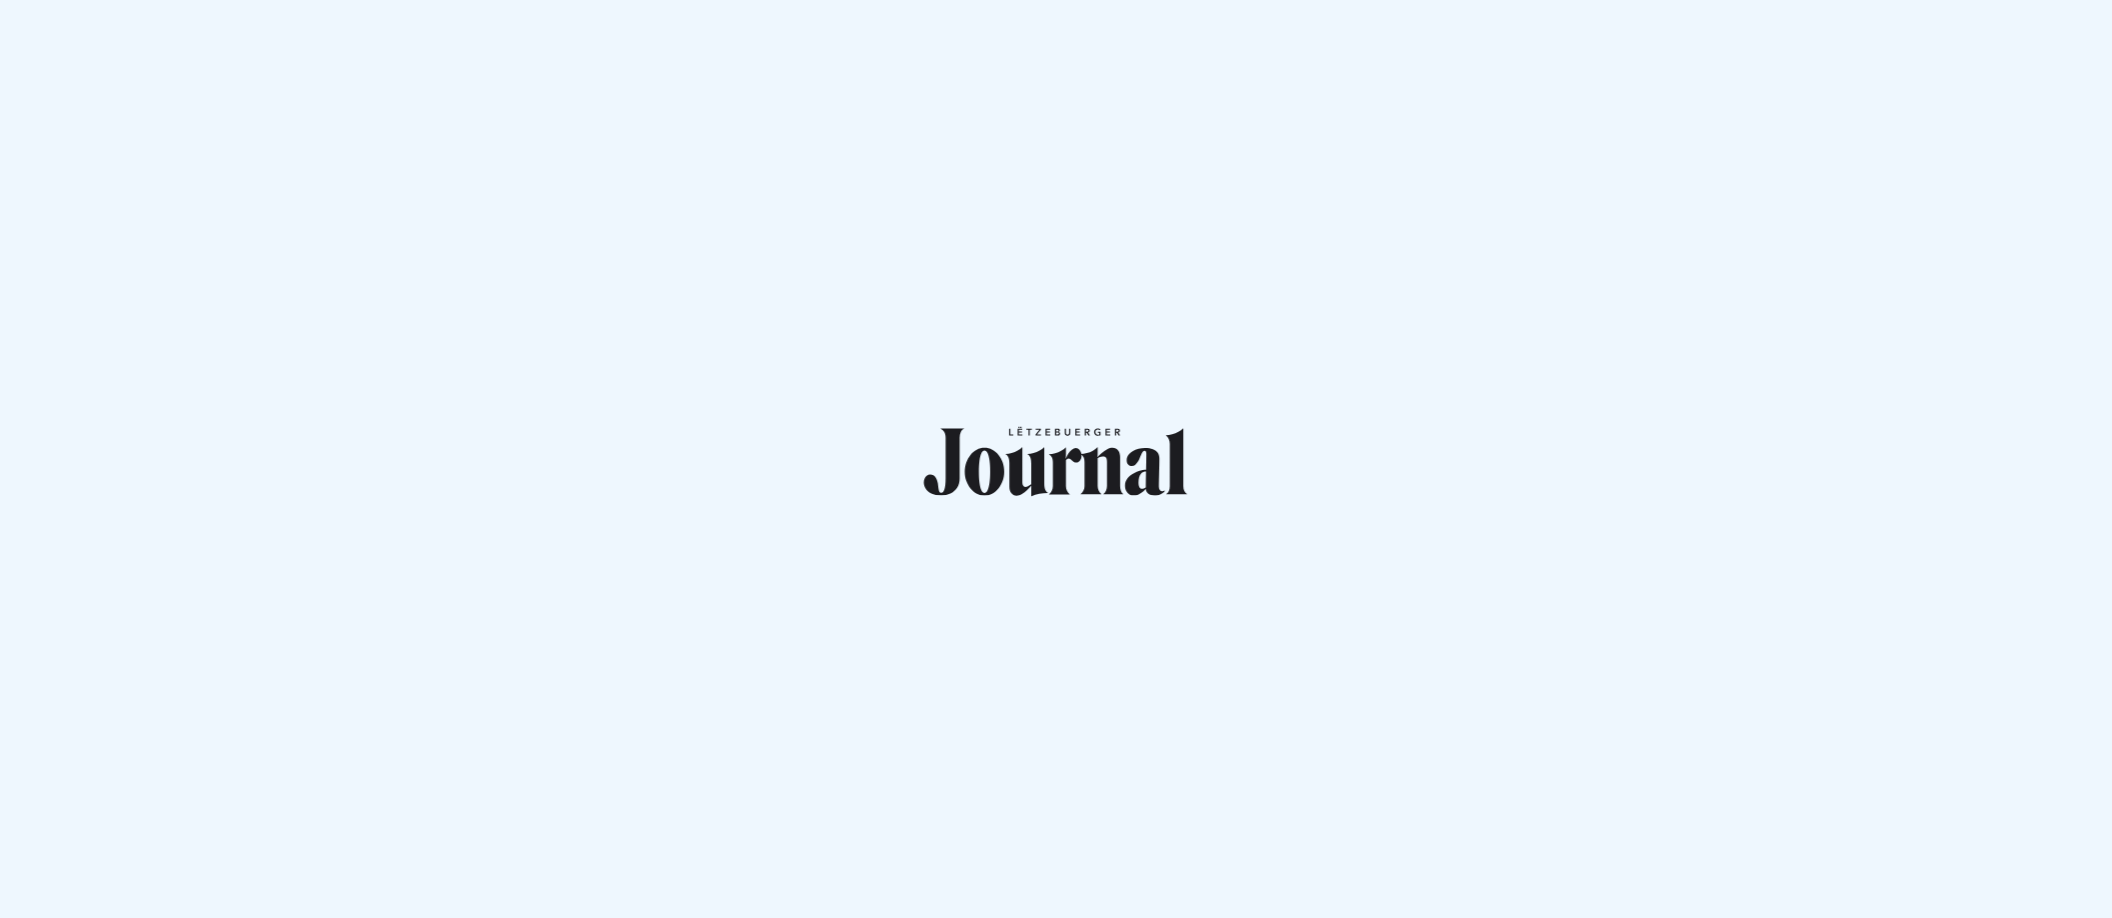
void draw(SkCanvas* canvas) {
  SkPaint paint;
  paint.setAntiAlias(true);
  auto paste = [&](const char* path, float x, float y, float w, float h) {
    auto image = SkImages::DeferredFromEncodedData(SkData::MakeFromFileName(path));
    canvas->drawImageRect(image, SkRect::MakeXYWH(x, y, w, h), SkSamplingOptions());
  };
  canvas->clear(0xffeef7fe);
  paste("img/1.png", 923, 426, 265, 71);
}
